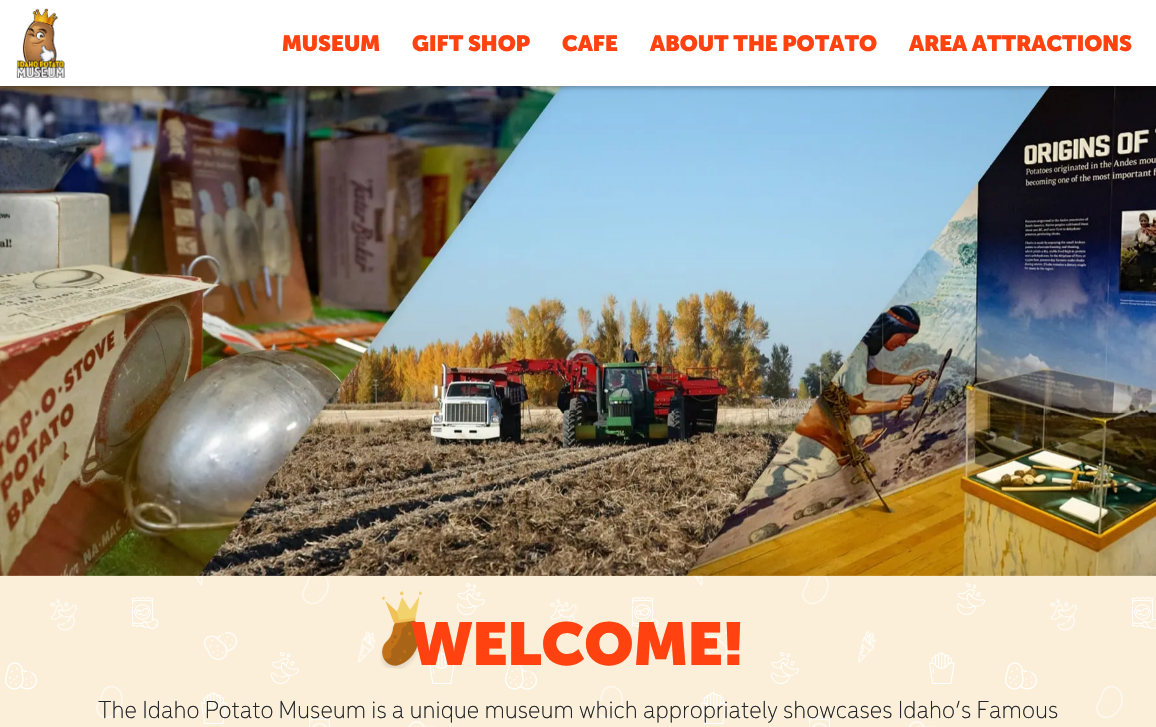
void draw(SkCanvas* canvas) {
  SkPaint paint;
  paint.setAntiAlias(true);
  auto face = [&](const char* family, int weight, float size, bool italic = false) {
    SkFontStyle style(weight, SkFontStyle::kNormal_Width,
      italic ? SkFontStyle::kItalic_Slant : SkFontStyle::kUpright_Slant);
    SkFont result(fontMgr->matchFamilyStyle(family, style), size);
    result.setSubpixel(true);
    return result;
  };
  auto paste = [&](const char* path, float x, float y, float w, float h) {
    auto image = SkImages::DeferredFromEncodedData(SkData::MakeFromFileName(path));
    canvas->drawImageRect(image, SkRect::MakeXYWH(x, y, w, h), SkSamplingOptions());
  };
  canvas->clear(0xffffffff);
  paste("img/1.png", 0, 575, 1156, 152);
  paste("img/3.png", 0, 86, 1156, 490);
  paint.setColor(0x40000000);
  paint.setMaskFilter(SkMaskFilter::MakeBlur(kNormal_SkBlurStyle, 2));
  canvas->drawRect(SkRect::MakeXYWH(0, 2, 1156, 86), paint);
  paint.setMaskFilter(nullptr);
  paint.setColor(0xffffffff);
  canvas->drawRect(SkRect::MakeXYWH(0, 0, 1156, 86), paint);
  paste("img/2.png", 16, 8, 50, 70);
  paste("img/4.png", 380, 591, 42, 78);
  auto f0 = face("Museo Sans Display", 900, 22);
  paint.setColor(0xffff420f);
  {
    const struct { const char* s; float x, y; } items[] = {
      {"MUSEUM", 282, 51},
      {"GIFT SHOP", 412, 51},
      {"CAFE", 562, 51},
      {"ABOUT THE POTATO", 650, 51},
      {"AREA ATTRACTIONS", 909, 51},
    };
    for (auto [s, x, y] : items) {
      canvas->drawString(s, x, y, f0, paint);
    }
  }
  auto f1 = face("Museo Sans Display", 900, 60);
  canvas->drawString("WELCOME!", 411, 665, f1, paint);
  auto f2 = face("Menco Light", 300, 26);
  paint.setColor(0xff212529);
  canvas->drawString("The Idaho Potato Museum is a unique museum which appropriately showcases Idaho’s Famous", 98, 718, f2, paint);
}
